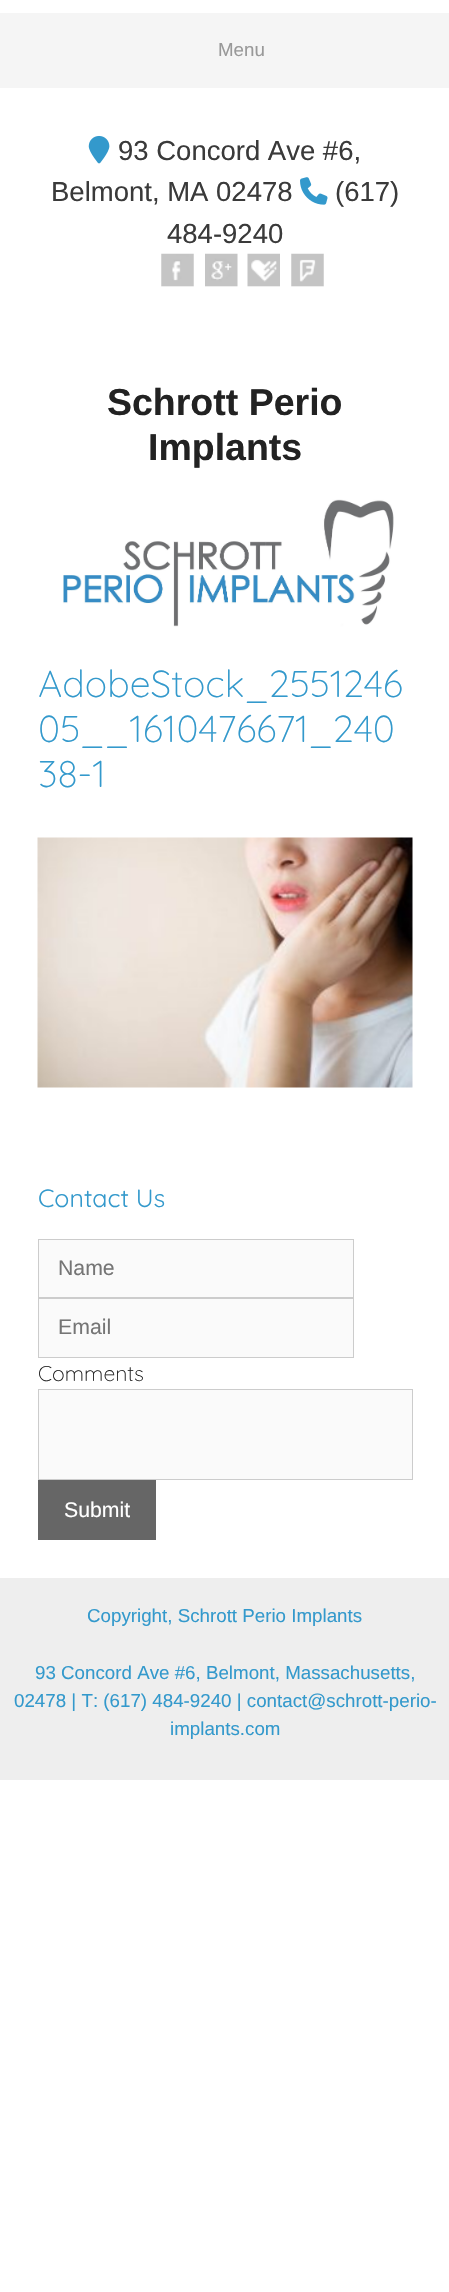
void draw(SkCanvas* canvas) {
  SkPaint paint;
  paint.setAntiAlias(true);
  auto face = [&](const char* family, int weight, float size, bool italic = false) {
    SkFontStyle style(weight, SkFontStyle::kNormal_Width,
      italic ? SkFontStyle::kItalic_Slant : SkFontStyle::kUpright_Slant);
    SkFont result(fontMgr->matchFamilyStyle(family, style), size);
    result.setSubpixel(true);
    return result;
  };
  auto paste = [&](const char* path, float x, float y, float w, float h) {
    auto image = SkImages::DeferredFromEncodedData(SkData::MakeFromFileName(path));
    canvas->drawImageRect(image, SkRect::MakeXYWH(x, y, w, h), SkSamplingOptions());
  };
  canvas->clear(0xffffffff);
  paint.setColor(0xfff5f5f5);
  canvas->drawRect(SkRect::MakeXYWH(0, 13, 449, 75), paint);
  paste("img/1.png", 88, 135, 22, 29);
  paste("img/2.png", 300, 177, 28, 28);
  paste("img/3.png", 161, 253, 33, 34);
  paste("img/4.png", 205, 253, 33, 34);
  paste("img/5.png", 247, 253, 33, 34);
  paste("img/6.png", 291, 253, 33, 34);
  paste("img/7.png", 63, 499, 331, 128);
  paste("img/8.png", 37, 837, 376, 251);
  paint.setColor(0xfffafafa);
  canvas->drawRect(SkRect::MakeXYWH(38.5f, 1239.5f, 315, 58), paint);
  paint.setStroke(true);
  paint.setStrokeWidth(1);
  paint.setColor(0xffcccccc);
  canvas->drawRect(SkRect::MakeXYWH(38.5f, 1239.5f, 315, 58), paint);
  paint.setStroke(false);
  paint.setColor(0xfffafafa);
  canvas->drawRect(SkRect::MakeXYWH(38.5f, 1298.5f, 315, 59), paint);
  paint.setStroke(true);
  paint.setColor(0xffcccccc);
  canvas->drawRect(SkRect::MakeXYWH(38.5f, 1298.5f, 315, 59), paint);
  paint.setStroke(false);
  paint.setColor(0xfffafafa);
  canvas->drawRect(SkRect::MakeXYWH(38.5f, 1389.5f, 374, 90), paint);
  paint.setStroke(true);
  paint.setColor(0xffcccccc);
  canvas->drawRect(SkRect::MakeXYWH(38.5f, 1389.5f, 374, 90), paint);
  paint.setStroke(false);
  paint.setColor(0xff666666);
  canvas->drawRect(SkRect::MakeXYWH(38, 1480, 118, 60), paint);
  paint.setColor(0xffeeeeee);
  canvas->drawRect(SkRect::MakeXYWH(0, 1578, 449, 202), paint);
  auto f0 = face("Liberation Sans", 400, 18.75f);
  paint.setColor(0xff999999);
  canvas->drawString("Menu", 218, 56, f0, paint);
  auto f1 = face("Liberation Sans", 400, 27.5f);
  paint.setColor(0xff3a3a3a);
  {
    const struct { const char* s; float x, y; } items[] = {
      {"93 Concord Ave #6,", 118, 160},
      {"Belmont, MA 02478", 51, 201},
      {"(617)", 335, 201},
      {"484-9240", 167, 243},
    };
    for (auto [s, x, y] : items) {
      canvas->drawString(s, x, y, f1, paint);
    }
  }
  auto f2 = face("Liberation Sans", 700, 37.5f);
  paint.setColor(0xff222222);
  canvas->drawString("Schrott Perio", 107, 415, f2, paint);
  canvas->drawString("Implants", 148, 460, f2, paint);
  auto f3 = face("Quicksand", 300, 37.5f);
  paint.setColor(0xff3399cc);
  {
    const struct { const char* s; float x, y; } items[] = {
      {"AdobeStock_2551246", 38, 697},
      {"05__1610476671_240", 38, 742},
      {"38-1", 38, 787},
    };
    for (auto [s, x, y] : items) {
      canvas->drawString(s, x, y, f3, paint);
    }
  }
  auto f4 = face("Quicksand", 400, 25);
  canvas->drawString("Contact Us", 38, 1207, f4, paint);
  auto f5 = face("Liberation Sans", 400, 21.25f);
  paint.setColor(0xff757575);
  canvas->drawString("Name", 58, 1275, f5, paint);
  canvas->drawString("Email", 58, 1334, f5, paint);
  auto f6 = face("Quicksand", 300, 21.25f);
  paint.setColor(0xff222222);
  canvas->drawString("Comments", 38, 1381, f6, paint);
  paint.setColor(0xffffffff);
  canvas->drawString("Submit", 64, 1517, f5, paint);
  paint.setColor(0xff3399cc);
  {
    const struct { const char* s; float x, y; } items[] = {
      {"Copyright, Schrott Perio Implants", 87, 1622},
      {"93 Concord Ave #6, Belmont, Massachusetts,", 35, 1679},
      {"02478 | T: (617) 484-9240 | contact@schrott-perio-", 14, 1707},
      {"implants.com", 170, 1735},
    };
    for (auto [s, x, y] : items) {
      canvas->drawString(s, x, y, f0, paint);
    }
  }
}
